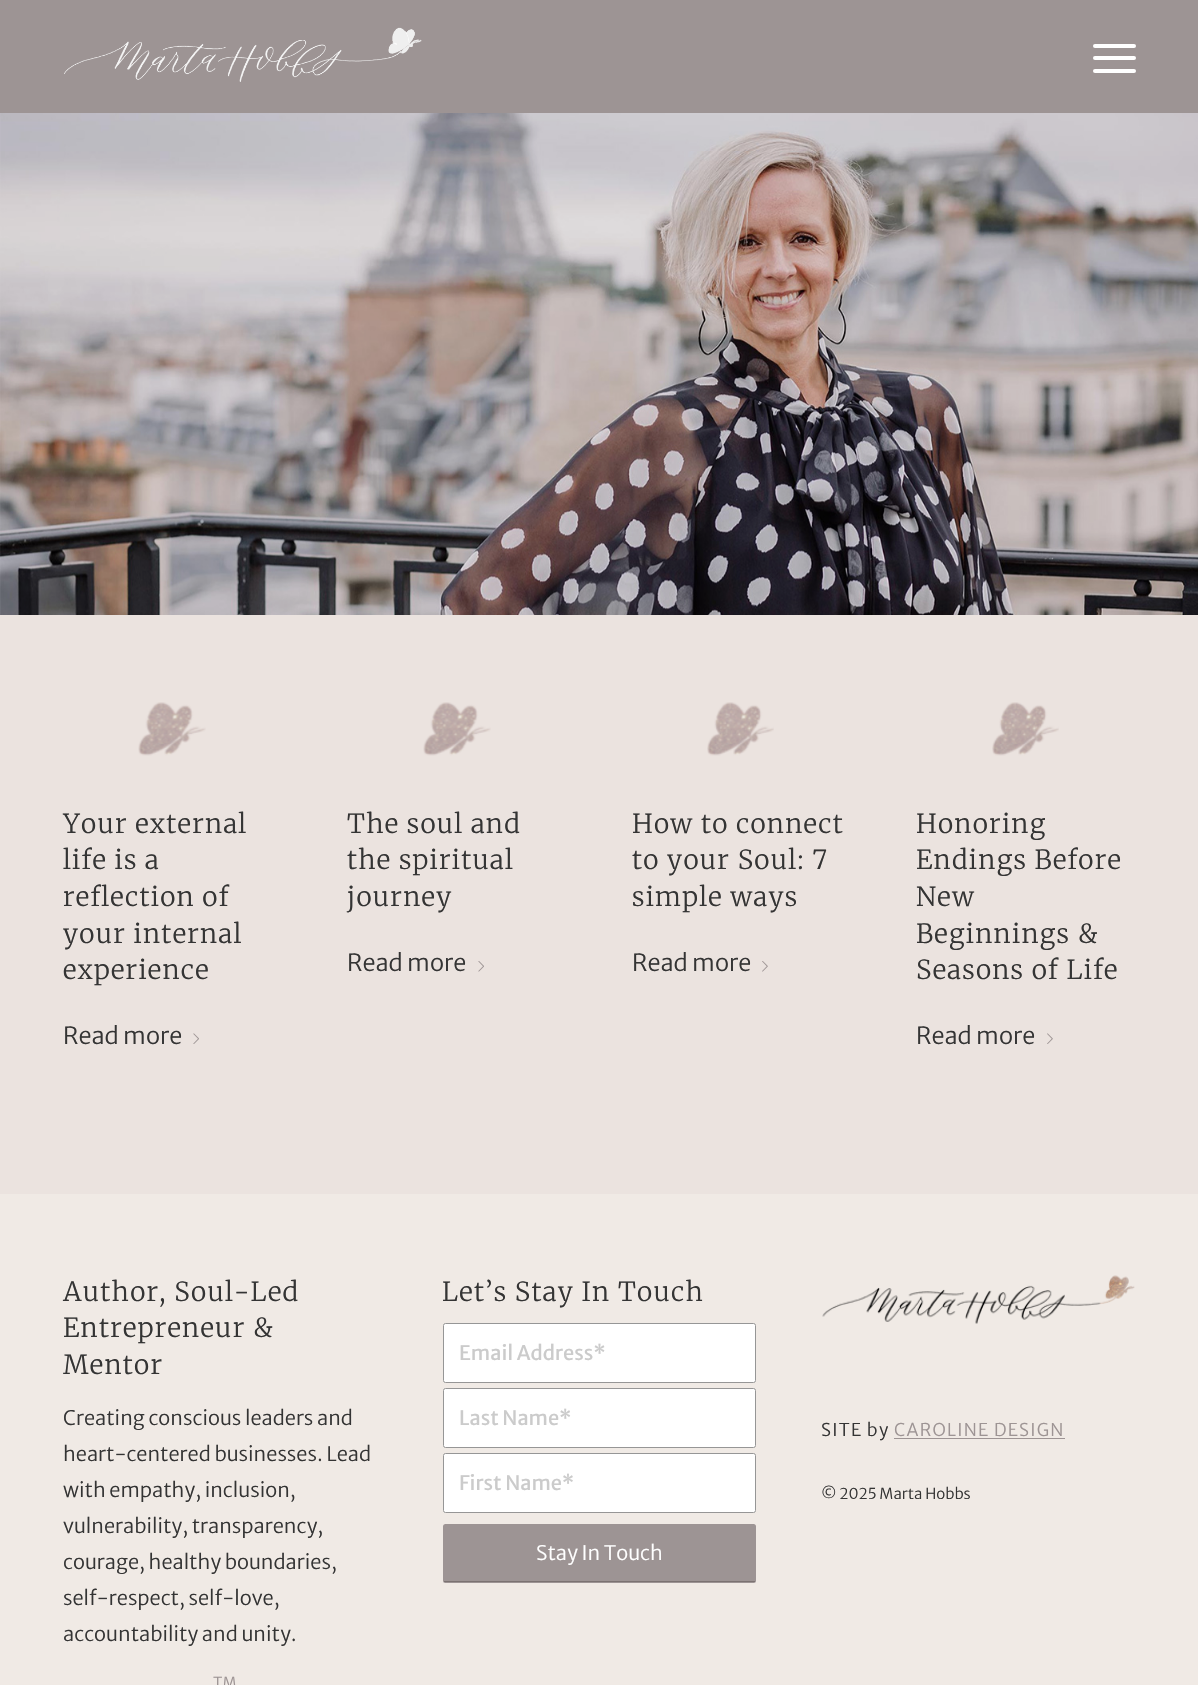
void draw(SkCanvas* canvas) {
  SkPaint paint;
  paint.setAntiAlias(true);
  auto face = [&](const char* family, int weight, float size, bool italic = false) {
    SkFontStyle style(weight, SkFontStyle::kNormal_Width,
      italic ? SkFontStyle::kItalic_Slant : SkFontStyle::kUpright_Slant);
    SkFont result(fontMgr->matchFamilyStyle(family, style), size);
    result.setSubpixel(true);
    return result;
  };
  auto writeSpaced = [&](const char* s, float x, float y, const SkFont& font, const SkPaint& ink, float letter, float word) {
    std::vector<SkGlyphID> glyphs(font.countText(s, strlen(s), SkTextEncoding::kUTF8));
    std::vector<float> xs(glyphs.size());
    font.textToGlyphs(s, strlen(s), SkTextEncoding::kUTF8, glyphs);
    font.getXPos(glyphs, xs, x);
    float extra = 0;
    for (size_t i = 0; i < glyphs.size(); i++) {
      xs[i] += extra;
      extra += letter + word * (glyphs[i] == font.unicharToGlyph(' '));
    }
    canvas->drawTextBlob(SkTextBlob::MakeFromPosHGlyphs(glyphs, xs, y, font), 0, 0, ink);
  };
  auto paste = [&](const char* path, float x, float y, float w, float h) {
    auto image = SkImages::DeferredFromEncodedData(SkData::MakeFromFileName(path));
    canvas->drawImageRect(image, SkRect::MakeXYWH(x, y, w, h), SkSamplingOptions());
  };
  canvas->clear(0xffebe3df);
  paint.setColor(0xff9d9494);
  canvas->drawRect(SkRect::MakeXYWH(0, 0, 1198, 113), paint);
  paste("img/1.png", 64, 27, 358, 55);
  paint.setColor(0xffffffff);
  canvas->drawRoundRect(SkRect::MakeXYWH(1093, 56, 43, 4), 2, 2, paint);
  canvas->drawRoundRect(SkRect::MakeXYWH(1093, 44, 43, 4), 2, 2, paint);
  canvas->drawRoundRect(SkRect::MakeXYWH(1093, 69, 43, 4), 2, 2, paint);
  paste("img/2.png", 0, 113, 1198, 502);
  paste("img/3.png", 138, 702, 68, 54);
  paste("img/4.png", 193, 1033, 6, 11);
  paste("img/3.png", 423, 702, 68, 54);
  paste("img/5.png", 478, 961, 6, 11);
  paste("img/6.png", 707, 702, 67, 54);
  paste("img/7.png", 762, 961, 6, 11);
  paste("img/6.png", 992, 702, 67, 54);
  paste("img/8.png", 1047, 1033, 6, 11);
  paint.setColor(0xfff0eae5);
  canvas->drawRect(SkRect::MakeXYWH(0, 1194, 1198, 491), paint);
  paint.setColor(0xffffffff);
  canvas->drawRoundRect(SkRect::MakeXYWH(443.5f, 1323.5f, 312, 59), 2, 2, paint);
  paint.setStroke(true);
  paint.setStrokeWidth(1);
  paint.setColor(0xff969696);
  canvas->drawRoundRect(SkRect::MakeXYWH(443.5f, 1323.5f, 312, 59), 2, 2, paint);
  paint.setStroke(false);
  paint.setColor(0xffffffff);
  canvas->drawRoundRect(SkRect::MakeXYWH(443.5f, 1388.5f, 312, 59), 2, 2, paint);
  paint.setStroke(true);
  paint.setColor(0xff969696);
  canvas->drawRoundRect(SkRect::MakeXYWH(443.5f, 1388.5f, 312, 59), 2, 2, paint);
  paint.setStroke(false);
  paint.setColor(0xffffffff);
  canvas->drawRoundRect(SkRect::MakeXYWH(443.5f, 1453.5f, 312, 59), 2, 2, paint);
  paint.setStroke(true);
  paint.setColor(0xff969696);
  canvas->drawRoundRect(SkRect::MakeXYWH(443.5f, 1453.5f, 312, 59), 2, 2, paint);
  paint.setStroke(false);
  paint.setColor(0xff9d9494);
  canvas->drawRoundRect(SkRect::MakeXYWH(443, 1524, 313, 59), 2.5f, 2.5f, paint);
  paint.setColor(0xff7b7272);
  canvas->drawRect(SkRect::MakeXYWH(444, 1581, 311, 1), paint);
  paste("img/9.png", 822, 1275, 313, 49);
  paint.setColor(0xff9d9494);
  canvas->drawRect(SkRect::MakeXYWH(894, 1438, 171, 1), paint);
  auto f0 = face("Merriweather", 300, 26.25f);
  paint.setColor(0xff343434);
  {
    const struct { const char* s; float x, y; } items[] = {
      {"Your external", 63, 833},
      {"life is a", 63, 869},
      {"reflection of", 63, 906},
      {"your internal", 63, 943},
      {"experience", 63, 979},
    };
    for (auto [s, x, y] : items) {
      writeSpaced(s, x, y, f0, paint, 1.25f, 0);
    }
  }
  auto f1 = face("Merriweather Sans", 300, 23.5f);
  canvas->drawString("Read more", 63, 1044, f1, paint);
  {
    const struct { const char* s; float x, y; } items[] = {
      {"The soul and", 347, 833},
      {"the spiritual", 347, 869},
      {"journey", 347, 906},
    };
    for (auto [s, x, y] : items) {
      writeSpaced(s, x, y, f0, paint, 1.25f, 0);
    }
  }
  canvas->drawString("Read more", 347, 971, f1, paint);
  {
    const struct { const char* s; float x, y; } items[] = {
      {"How to connect", 632, 833},
      {"to your Soul: 7", 632, 869},
      {"simple ways", 632, 906},
    };
    for (auto [s, x, y] : items) {
      writeSpaced(s, x, y, f0, paint, 1.25f, 0);
    }
  }
  canvas->drawString("Read more", 632, 971, f1, paint);
  {
    const struct { const char* s; float x, y; } items[] = {
      {"Honoring", 916, 833},
      {"Endings Before", 916, 869},
      {"New", 916, 906},
      {"Beginnings &", 916, 943},
      {"Seasons of Life", 916, 979},
    };
    for (auto [s, x, y] : items) {
      writeSpaced(s, x, y, f0, paint, 1.25f, 0);
    }
  }
  canvas->drawString("Read more", 916, 1044, f1, paint);
  {
    const struct { const char* s; float x, y; } items[] = {
      {"Author, Soul-Led", 63, 1301},
      {"Entrepreneur &", 63, 1337},
      {"Mentor", 63, 1374},
    };
    for (auto [s, x, y] : items) {
      writeSpaced(s, x, y, f0, paint, 1.25f, 0);
    }
  }
  auto f2 = face("Merriweather Sans", 300, 20);
  {
    const struct { const char* s; float x, y; } items[] = {
      {"Creating conscious leaders and", 63, 1425},
      {"heart-centered businesses. Lead", 63, 1461},
      {"with empathy, inclusion,", 63, 1497},
      {"vulnerability, transparency,", 63, 1533},
      {"courage, healthy boundaries,", 63, 1569},
      {"self-respect, self-love,", 63, 1605},
      {"accountability and unity.", 63, 1641},
    };
    for (auto [s, x, y] : items) {
      canvas->drawString(s, x, y, f2, paint);
    }
  }
  auto f3 = face("Merriweather Sans", 300, 15);
  paint.setColor(0xff9d9494);
  canvas->drawString("TM", 213, 1688, f3, paint);
  paint.setColor(0xff343434);
  writeSpaced("Let’s Stay In Touch", 442, 1301, f0, paint, 1.25f, 0);
  auto f4 = face("Merriweather Sans", 400, 20);
  paint.setColor(0xffcbcbcb);
  {
    const struct { const char* s; float x, y; } items[] = {
      {"Email Address*", 459, 1360},
      {"Last Name*", 459, 1425},
      {"First Name*", 459, 1490},
    };
    for (auto [s, x, y] : items) {
      canvas->drawString(s, x, y, f4, paint);
    }
  }
  paint.setColor(0xffffffff);
  canvas->drawString("Stay In Touch", 536, 1560, f2, paint);
  auto f5 = face("Merriweather Sans", 300, 17.5f);
  paint.setColor(0xff343434);
  writeSpaced("SITE by", 821, 1436, f5, paint, 1.25f, 0);
  paint.setColor(0xff9d9494);
  writeSpaced("CAROLINE DESIGN", 894, 1436, f5, paint, 1.25f, 0);
  paint.setColor(0xff343434);
  canvas->drawString("© 2025 Marta Hobbs", 821, 1499, f3, paint);
}
